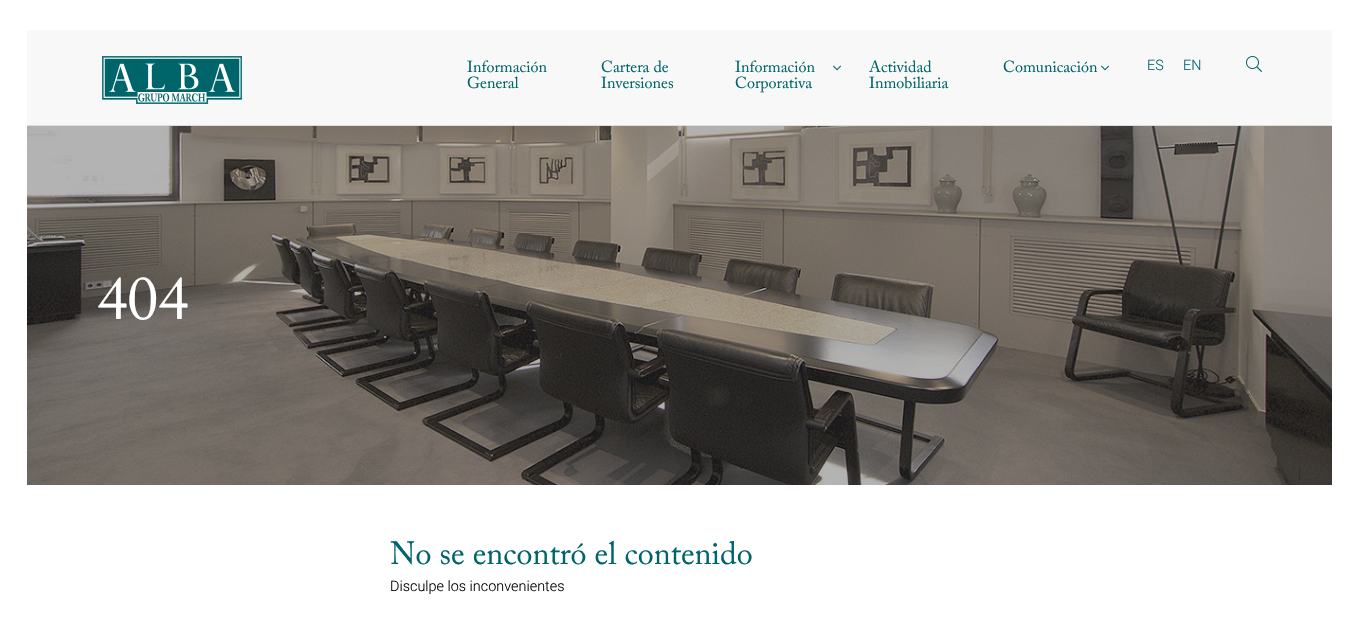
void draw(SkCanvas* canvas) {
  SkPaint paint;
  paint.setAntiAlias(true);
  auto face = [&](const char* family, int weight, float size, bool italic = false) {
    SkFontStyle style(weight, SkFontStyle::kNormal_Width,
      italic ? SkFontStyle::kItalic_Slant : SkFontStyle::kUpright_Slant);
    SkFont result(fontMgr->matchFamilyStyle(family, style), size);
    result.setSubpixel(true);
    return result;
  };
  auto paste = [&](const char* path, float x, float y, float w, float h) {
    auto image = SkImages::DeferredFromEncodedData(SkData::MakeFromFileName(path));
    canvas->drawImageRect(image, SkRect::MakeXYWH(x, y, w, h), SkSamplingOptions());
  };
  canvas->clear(0xffffffff);
  paint.setColor(0xfff8f8f8);
  canvas->drawRect(SkRect::MakeXYWH(27, 30, 1305, 95), paint);
  paint.setColor(0xffdddddd);
  canvas->drawRect(SkRect::MakeXYWH(27, 125, 1305, 1), paint);
  paste("img/1.png", 102, 56, 140, 48);
  paste("img/2.png", 833, 65, 8, 6);
  paste("img/2.png", 1101, 65, 8, 6);
  paste("img/3.png", 1246, 56, 16, 16);
  paste("img/4.png", 27, 126, 1305, 359);
  auto f0 = face("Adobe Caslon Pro", 400, 16);
  paint.setColor(0xff00656b);
  {
    const struct { const char* s; float x, y; } items[] = {
      {"Información", 467, 72},
      {"General", 467, 88},
      {"Cartera de", 601, 72},
      {"Inversiones", 601, 88},
      {"Información", 735, 72},
      {"Corporativa", 735, 88},
      {"Actividad", 869, 72},
      {"Inmobiliaria", 869, 88},
      {"Comunicación", 1003, 72},
    };
    for (auto [s, x, y] : items) {
      canvas->drawString(s, x, y, f0, paint);
    }
  }
  auto f1 = face("Roboto", 300, 14.4f);
  canvas->drawString("ES", 1147, 70, f1, paint);
  canvas->drawString("EN", 1183, 70, f1, paint);
  auto f2 = face("Adobe Caslon Pro", 400, 61);
  paint.setColor(0xffffffff);
  canvas->drawString("404", 97, 319, f2, paint);
  auto f3 = face("Adobe Caslon Pro", 400, 32);
  paint.setColor(0xff00656b);
  canvas->drawString("No se encontró el contenido", 390, 564, f3, paint);
  paint.setColor(0xff000000);
  canvas->drawString("Disculpe los inconvenientes", 390, 591, f1, paint);
}
